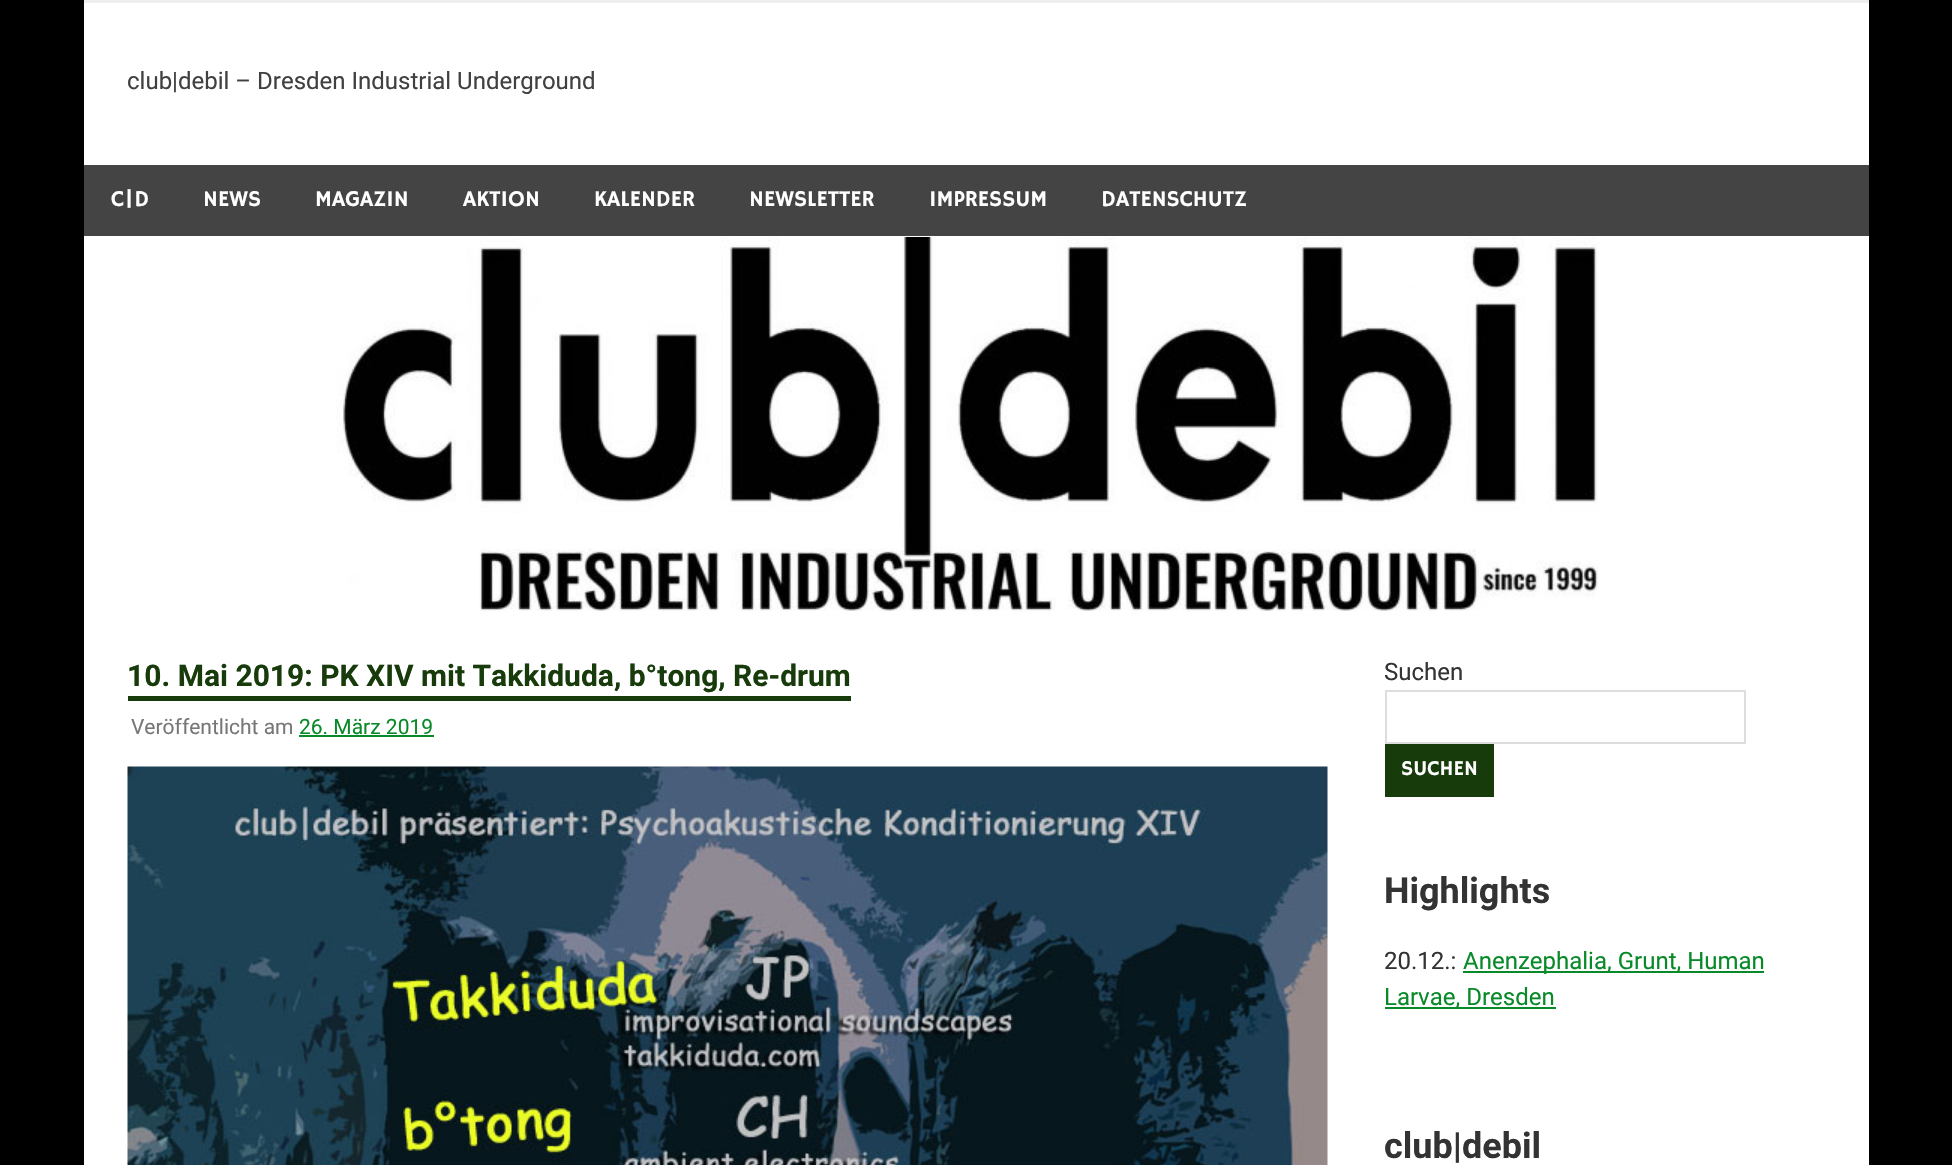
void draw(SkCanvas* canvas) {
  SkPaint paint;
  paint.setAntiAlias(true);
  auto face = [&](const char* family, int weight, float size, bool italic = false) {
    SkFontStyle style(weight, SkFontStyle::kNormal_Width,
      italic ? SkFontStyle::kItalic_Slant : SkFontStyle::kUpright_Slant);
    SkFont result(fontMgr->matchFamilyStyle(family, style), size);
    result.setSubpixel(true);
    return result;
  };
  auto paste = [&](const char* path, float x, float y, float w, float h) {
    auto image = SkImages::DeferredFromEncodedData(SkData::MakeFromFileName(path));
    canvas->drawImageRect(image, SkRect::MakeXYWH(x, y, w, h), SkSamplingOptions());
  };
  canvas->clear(0xff000000);
  {
    const struct { float x, y, w, h; SkColor color; } items[] = {
      {84, 3, 1785, 1162, 0xffffffff},
      {84, 0, 1785, 3, 0xffeeeeee},
      {84, 165, 1785, 71, 0xff444444},
    };
    for (auto [x, y, w, h, color] : items) {
      paint.setColor(color);
      canvas->drawRect(SkRect::MakeXYWH(x, y, w, h), paint);
    }
  }
  paste("img/1.png", 336, 237, 1263, 374);
  paint.setColor(0xff173b0b);
  canvas->drawRect(SkRect::MakeXYWH(128, 696, 723, 5), paint);
  paint.setColor(0xff088a29);
  canvas->drawRect(SkRect::MakeXYWH(299, 735, 135, 2), paint);
  paste("img/2.png", 127, 766, 1201, 399);
  paint.setStroke(true);
  paint.setStrokeWidth(2);
  paint.setColor(0xffdddddd);
  canvas->drawRect(SkRect::MakeXYWH(1386, 691, 359, 52), paint);
  paint.setStroke(false);
  {
    const struct { float x, y, w, h; SkColor color; } items[] = {
      {1385, 744, 109, 53, 0xff173b0b},
      {1463, 971, 301, 2, 0xff088a29},
      {1385, 1007, 171, 2, 0xff088a29},
    };
    for (auto [x, y, w, h, color] : items) {
      paint.setColor(color);
      canvas->drawRect(SkRect::MakeXYWH(x, y, w, h), paint);
    }
  }
  auto f0 = face("Roboto", 400, 24);
  paint.setColor(0xff404040);
  canvas->drawString("club|debil – Dresden Industrial Underground", 127, 89, f0, paint);
  auto f1 = face("Hammersmith One", 400, 22.5f);
  paint.setColor(0xffffffff);
  {
    const struct { const char* s; float x, y; } items[] = {
      {"C|D", 111, 206},
      {"NEWS", 203, 206},
      {"MAGAZIN", 315, 206},
      {"AKTION", 463, 206},
      {"KALENDER", 594, 206},
      {"NEWSLETTER", 749, 206},
      {"IMPRESSUM", 929, 206},
      {"DATENSCHUTZ", 1101, 206},
    };
    for (auto [s, x, y] : items) {
      canvas->drawString(s, x, y, f1, paint);
    }
  }
  auto f2 = face("Roboto", 700, 30);
  paint.setColor(0xff173b0b);
  canvas->drawString("10. Mai 2019: PK XIV mit Takkiduda, b°tong, Re-drum", 127, 686, f2, paint);
  auto f3 = face("Roboto", 400, 21);
  paint.setColor(0xff777777);
  canvas->drawString("Veröffentlicht am", 131, 734, f3, paint);
  paint.setColor(0xff088a29);
  canvas->drawString("26. März 2019", 299, 734, f3, paint);
  paint.setColor(0xff333333);
  canvas->drawString("Suchen", 1384, 680, f0, paint);
  auto f4 = face("Hammersmith One", 400, 21);
  paint.setColor(0xffffffff);
  canvas->drawString("SUCHEN", 1401, 775, f4, paint);
  auto f5 = face("Roboto", 700, 36);
  paint.setColor(0xff333333);
  canvas->drawString("Highlights", 1384, 903, f5, paint);
  canvas->drawString("20.12.:", 1384, 969, f0, paint);
  paint.setColor(0xff088a29);
  canvas->drawString("Anenzephalia, Grunt, Human", 1463, 969, f0, paint);
  canvas->drawString("Larvae, Dresden", 1384, 1005, f0, paint);
  paint.setColor(0xff333333);
  canvas->drawString("club|debil", 1384, 1158, f5, paint);
}
